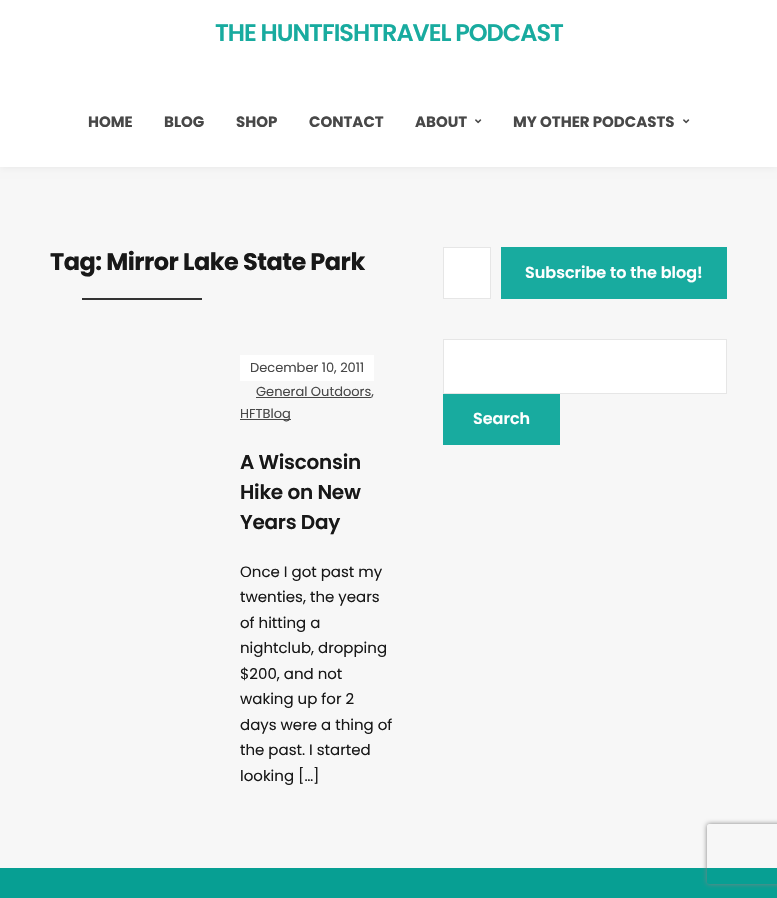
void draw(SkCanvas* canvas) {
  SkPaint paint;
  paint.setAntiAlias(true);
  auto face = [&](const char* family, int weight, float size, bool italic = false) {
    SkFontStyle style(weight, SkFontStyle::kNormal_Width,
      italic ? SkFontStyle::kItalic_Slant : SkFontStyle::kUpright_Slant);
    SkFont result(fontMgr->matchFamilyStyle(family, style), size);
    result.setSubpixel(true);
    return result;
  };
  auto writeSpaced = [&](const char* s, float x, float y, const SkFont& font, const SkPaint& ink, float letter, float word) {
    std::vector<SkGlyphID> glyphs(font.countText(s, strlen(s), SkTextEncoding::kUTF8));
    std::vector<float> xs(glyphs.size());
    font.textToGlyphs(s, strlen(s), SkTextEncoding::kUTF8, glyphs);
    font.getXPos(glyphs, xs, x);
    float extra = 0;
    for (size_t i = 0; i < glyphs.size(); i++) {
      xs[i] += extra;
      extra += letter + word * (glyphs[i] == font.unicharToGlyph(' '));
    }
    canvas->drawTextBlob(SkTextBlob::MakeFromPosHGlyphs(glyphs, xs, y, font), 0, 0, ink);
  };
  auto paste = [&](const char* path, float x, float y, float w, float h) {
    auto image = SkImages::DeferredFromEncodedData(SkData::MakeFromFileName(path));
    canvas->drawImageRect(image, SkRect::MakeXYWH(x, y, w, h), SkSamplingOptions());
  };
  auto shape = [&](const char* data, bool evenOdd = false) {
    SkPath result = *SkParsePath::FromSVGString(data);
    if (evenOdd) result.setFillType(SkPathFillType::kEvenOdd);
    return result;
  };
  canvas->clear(0xfff7f7f7);
  paint.setColor(0x12000000);
  paint.setMaskFilter(SkMaskFilter::MakeBlur(kNormal_SkBlurStyle, 4));
  canvas->drawRect(SkRect::MakeXYWH(0, 0, 777, 167), paint);
  paint.setMaskFilter(nullptr);
  paint.setColor(0xffffffff);
  canvas->drawRect(SkRect::MakeXYWH(0, 0, 777, 167), paint);
  paste("img/1.png", 475, 119, 7, 5);
  paste("img/1.png", 683, 119, 7, 5);
  {
    const struct { float x, y, w, h; SkColor color; } items[] = {
      {82, 298, 120, 2, 0xff333333},
      {240, 355, 134, 26, 0xffffffff},
      {256, 397, 115, 1, 0xff484848},
      {240, 419, 51, 1, 0xff484848},
    };
    for (auto [x, y, w, h, color] : items) {
      paint.setColor(color);
      canvas->drawRect(SkRect::MakeXYWH(x, y, w, h), paint);
    }
  }
  paint.setColor(0xffffffff);
  canvas->drawRect(SkRect::MakeXYWH(443.5f, 247.5f, 47, 51), paint);
  paint.setStroke(true);
  paint.setStrokeWidth(1);
  paint.setColor(0xffe6e6e6);
  canvas->drawRect(SkRect::MakeXYWH(443.5f, 247.5f, 47, 51), paint);
  paint.setStroke(false);
  paint.setColor(0xff18ab9f);
  canvas->drawRect(SkRect::MakeXYWH(501, 247, 226, 52), paint);
  paint.setColor(0xffffffff);
  canvas->drawRect(SkRect::MakeXYWH(443.5f, 339.5f, 283, 54), paint);
  paint.setStroke(true);
  paint.setColor(0xffe6e6e6);
  canvas->drawRect(SkRect::MakeXYWH(443.5f, 339.5f, 283, 54), paint);
  paint.setStroke(false);
  paint.setColor(0xff18ab9f);
  canvas->drawRect(SkRect::MakeXYWH(443, 394, 117, 51), paint);
  paint.setColor(0xff079f93);
  canvas->drawRect(SkRect::MakeXYWH(0, 868, 777, 30), paint);
  canvas->save();
  canvas->clipPath(shape("M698 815H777V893H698ZM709 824H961C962 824 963 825 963 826V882C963 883 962 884 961 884H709C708 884 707 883 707 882V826C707 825 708 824 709 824Z", true), true);
  paint.setColor(0xff808080);
  paint.setMaskFilter(SkMaskFilter::MakeBlur(kNormal_SkBlurStyle, 2.5f));
  canvas->drawRoundRect(SkRect::MakeXYWH(707, 824, 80, 60), 2, 2, paint);
  paint.setMaskFilter(nullptr);
  canvas->restore();
  auto f0 = face("Poppins", 600, 24);
  paint.setColor(0xff18ab9f);
  writeSpaced("THE HUNTFISHTRAVEL PODCAST", 215, 41, f0, paint, -1, 0);
  auto f1 = face("Poppins", 700, 15);
  paint.setColor(0xff484848);
  {
    const struct { const char* s; float x, y; } items[] = {
      {"HOME", 88, 127},
      {"BLOG", 164, 127},
      {"SHOP", 236, 127},
      {"CONTACT", 309, 127},
      {"ABOUT", 415, 127},
      {"MY OTHER PODCASTS", 513, 127},
    };
    for (auto [s, x, y] : items) {
      canvas->drawString(s, x, y, f1, paint);
    }
  }
  auto f2 = face("Poppins", 700, 24);
  paint.setColor(0xff181818);
  writeSpaced("Tag: Mirror Lake State Park", 50, 270, f2, paint, -0.5f, 0);
  auto f3 = face("Poppins", 400, 13);
  paint.setColor(0xff484848);
  {
    const struct { const char* s; float x, y; } items[] = {
      {"December 10, 2011", 250, 372},
      {"General Outdoors,", 256, 396},
      {"HFTBlog", 240, 418},
    };
    for (auto [s, x, y] : items) {
      canvas->drawString(s, x, y, f3, paint);
    }
  }
  auto f4 = face("Poppins", 600, 20);
  paint.setColor(0xff181818);
  {
    const struct { const char* s; float x, y; } items[] = {
      {"A Wisconsin", 240, 469},
      {"Hike on New", 240, 499},
      {"Years Day", 240, 529},
    };
    for (auto [s, x, y] : items) {
      writeSpaced(s, x, y, f4, paint, -0.25f, 0);
    }
  }
  auto f5 = face("Poppins", 400, 15);
  {
    const struct { const char* s; float x, y; } items[] = {
      {"Once I got past my", 240, 577},
      {"twenties, the years", 240, 602},
      {"of hitting a", 240, 628},
      {"nightclub, dropping", 240, 653},
      {"$200, and not", 240, 679},
      {"waking up for 2", 240, 704},
      {"days were a thing of", 240, 730},
      {"the past. I started", 240, 755},
      {"looking […]", 240, 781},
    };
    for (auto [s, x, y] : items) {
      canvas->drawString(s, x, y, f5, paint);
    }
  }
  auto f6 = face("Poppins", 600, 16);
  paint.setColor(0xffffffff);
  canvas->drawString("Subscribe to the blog!", 525, 278, f6, paint);
  canvas->drawString("Search", 473, 424, f6, paint);
}
